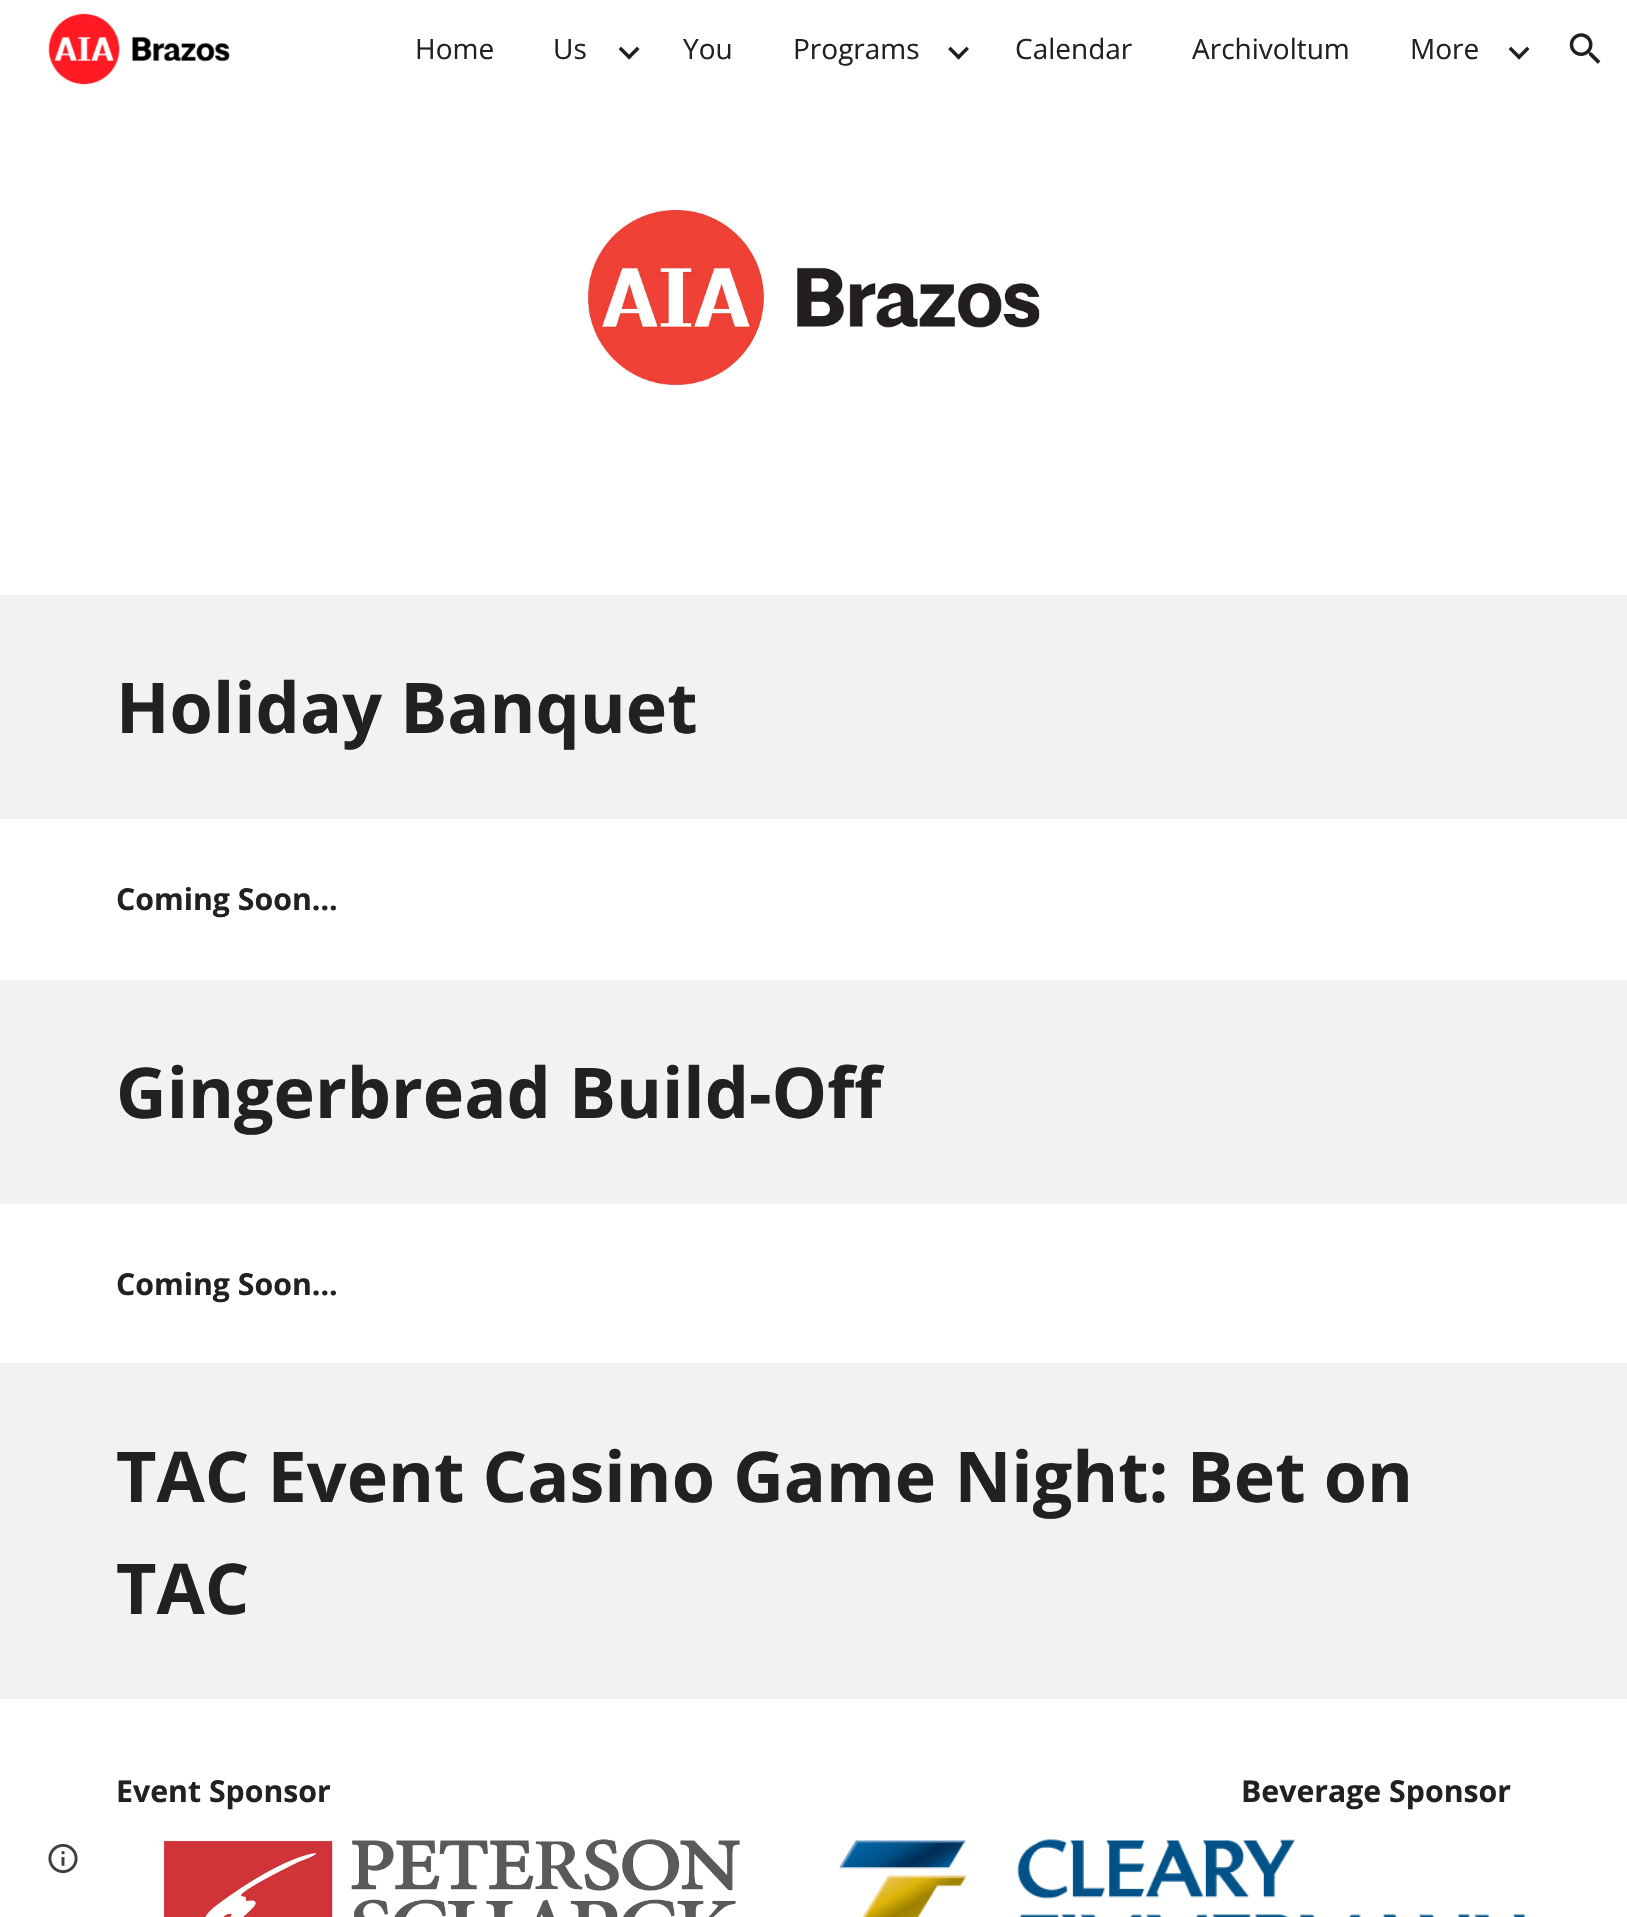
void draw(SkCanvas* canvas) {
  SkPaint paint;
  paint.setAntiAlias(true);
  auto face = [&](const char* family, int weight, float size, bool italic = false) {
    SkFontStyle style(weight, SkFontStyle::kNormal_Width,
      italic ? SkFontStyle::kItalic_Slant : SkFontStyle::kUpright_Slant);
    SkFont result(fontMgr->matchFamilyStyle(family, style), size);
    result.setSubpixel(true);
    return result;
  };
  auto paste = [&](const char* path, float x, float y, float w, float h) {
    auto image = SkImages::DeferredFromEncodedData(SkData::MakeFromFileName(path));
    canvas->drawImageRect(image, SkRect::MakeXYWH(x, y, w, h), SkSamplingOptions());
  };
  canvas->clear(0xffffffff);
  paste("img/1.png", 48, 13, 182, 72);
  paste("img/2.png", 618, 46, 22, 14);
  paste("img/3.png", 948, 46, 21, 14);
  paste("img/4.png", 1508, 46, 22, 14);
  paste("img/5.png", 1569, 33, 32, 31);
  paste("img/6.png", 588, 210, 452, 175);
  {
    const struct { float x, y, w, h; SkColor color; } items[] = {
      {0, 595, 1627, 224, 0xfff2f2f2},
      {0, 980, 1627, 224, 0xfff2f2f2},
      {0, 1363, 1627, 336, 0xfff2f2f2},
    };
    for (auto [x, y, w, h, color] : items) {
      paint.setColor(color);
      canvas->drawRect(SkRect::MakeXYWH(x, y, w, h), paint);
    }
  }
  paste("img/7.png", 163, 1839, 577, 78);
  paste("img/8.png", 839, 1839, 686, 78);
  paste("img/9.png", 48, 1843, 30, 31);
  auto f0 = face("Open Sans", 400, 28);
  paint.setColor(0xff212121);
  {
    const struct { const char* s; float x, y; } items[] = {
      {"Home", 415, 59},
      {"Us", 553, 59},
      {"You", 683, 59},
      {"Programs", 793, 59},
      {"Calendar", 1015, 59},
      {"Archivoltum", 1192, 59},
      {"More", 1410, 59},
    };
    for (auto [s, x, y] : items) {
      canvas->drawString(s, x, y, f0, paint);
    }
  }
  auto f1 = face("Open Sans", 700, 70);
  canvas->drawString("Holiday Banquet", 116, 733, f1, paint);
  auto f2 = face("Open Sans", 700, 30.25f);
  canvas->drawString("Coming Soon...", 116, 910, f2, paint);
  canvas->drawString("Gingerbread Build-Off", 116, 1118, f1, paint);
  canvas->drawString("Coming Soon...", 116, 1295, f2, paint);
  canvas->drawString("TAC Event Casino Game Night: Bet on", 116, 1502, f1, paint);
  canvas->drawString("TAC", 116, 1614, f1, paint);
  canvas->drawString("Event Sponsor", 116, 1802, f2, paint);
  canvas->drawString("Beverage Sponsor", 1241, 1802, f2, paint);
}
